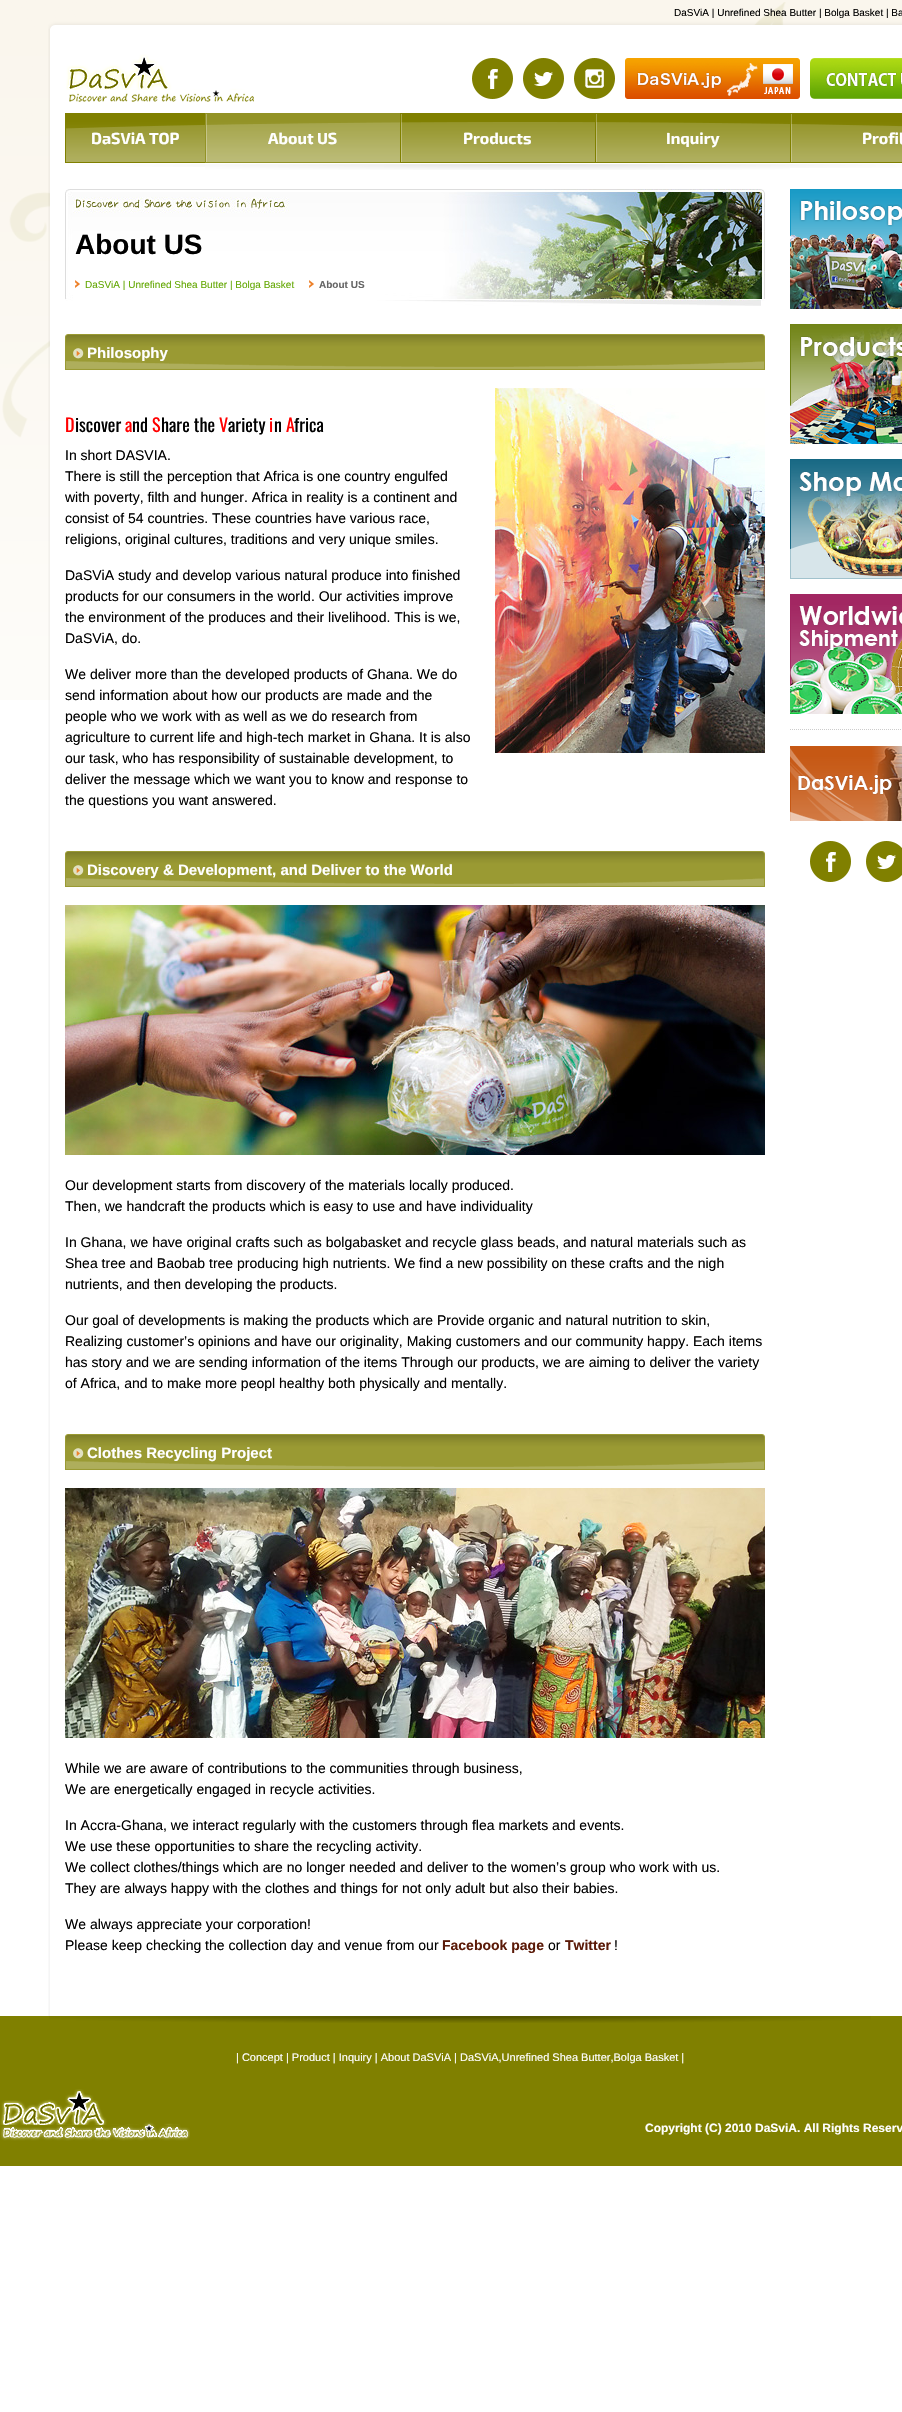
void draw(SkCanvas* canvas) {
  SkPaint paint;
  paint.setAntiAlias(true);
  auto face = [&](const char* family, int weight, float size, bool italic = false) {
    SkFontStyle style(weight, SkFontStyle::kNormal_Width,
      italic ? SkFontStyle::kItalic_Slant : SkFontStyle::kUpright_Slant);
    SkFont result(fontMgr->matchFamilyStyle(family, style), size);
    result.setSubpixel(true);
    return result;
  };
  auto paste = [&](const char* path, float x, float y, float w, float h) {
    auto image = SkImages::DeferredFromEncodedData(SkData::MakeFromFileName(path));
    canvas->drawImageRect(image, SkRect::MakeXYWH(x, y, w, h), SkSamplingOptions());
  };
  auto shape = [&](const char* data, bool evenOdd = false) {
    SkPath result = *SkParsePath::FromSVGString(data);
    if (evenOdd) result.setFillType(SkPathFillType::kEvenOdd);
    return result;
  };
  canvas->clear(0xffffffff);
  paste("img/1.png", 0, 0, 902, 700);
  paste("img/2.png", 48, 29, 854, 1987);
  paste("img/3.png", 48, 20, 854, 9);
  paste("img/4.png", 66, 54, 188, 48);
  paste("img/5.png", 472, 58, 41, 41);
  paste("img/6.png", 523, 58, 41, 41);
  paste("img/7.png", 574, 58, 41, 41);
  paste("img/8.png", 625, 58, 175, 41);
  paste("img/9.png", 810, 58, 92, 41);
  paste("img/10.png", 65, 113, 140, 54);
  paste("img/11.png", 205, 113, 195, 57);
  paste("img/12.png", 400, 113, 195, 57);
  paste("img/13.png", 595, 113, 195, 57);
  paste("img/14.png", 790, 113, 112, 55);
  paste("img/15.png", 65, 189, 700, 117);
  paste("img/16.png", 75, 280, 5, 8);
  paste("img/16.png", 309, 280, 5, 8);
  paste("img/17.png", 65, 334, 700, 36);
  paste("img/18.png", 495, 388, 270, 365);
  paste("img/17.png", 65, 851, 700, 36);
  paste("img/19.png", 65, 905, 700, 250);
  paste("img/17.png", 65, 1434, 700, 36);
  paste("img/20.png", 65, 1488, 700, 250);
  paste("img/21.png", 790, 189, 112, 120);
  paste("img/22.png", 790, 324, 112, 120);
  paste("img/23.png", 790, 459, 112, 120);
  paste("img/24.png", 790, 594, 112, 120);
  paint.setStroke(true);
  paint.setStrokeWidth(1);
  paint.setColor(0xffcccccc);
  paint.setPathEffect(SkDashPathEffect::Make({{1, 1}}, 0));
  canvas->drawPath(shape("M790 729.5H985"), paint);
  paint.setPathEffect(nullptr);
  paste("img/25.png", 790, 746, 112, 75);
  paste("img/5.png", 810, 841, 41, 41);
  paste("img/26.png", 866, 841, 36, 41);
  paint.setStroke(false);
  paint.setColor(0xff808000);
  canvas->drawRect(SkRect::MakeXYWH(0, 2016, 902, 150), paint);
  paste("img/27.png", 49, 2016, 822, 7);
  paste("img/28.png", 0, 2089, 190, 52);
  auto f0 = face("Liberation Sans", 400, 10);
  paint.setColor(0xff000000);
  canvas->drawString("DaSViA | Unrefined Shea Butter | Bolga Basket | Ba", 674, 16, f0, paint);
  auto f1 = face("Exo 2", 700, 16);
  paint.setColor(0xffffffff);
  {
    const struct { const char* s; float x, y; } items[] = {
      {"DaSViA TOP", 91, 144},
      {"About US", 268, 144},
      {"Products", 463, 144},
      {"Inquiry", 666, 144},
      {"Profil", 862, 144},
    };
    for (auto [s, x, y] : items) {
      canvas->drawString(s, x, y, f1, paint);
    }
  }
  auto f2 = face("Liberation Sans", 700, 28);
  paint.setColor(0xff000000);
  canvas->drawString("About US", 75, 254, f2, paint);
  paint.setColor(0xff64a804);
  canvas->drawString("DaSViA | Unrefined Shea Butter | Bolga Basket", 85, 288, f0, paint);
  auto f3 = face("Liberation Sans", 700, 10);
  paint.setColor(0xff666666);
  canvas->drawString("About US", 319, 288, f3, paint);
  auto f4 = face("Liberation Sans", 700, 15);
  paint.setColor(0xffffffff);
  canvas->drawString("Philosophy", 87, 358, f4, paint);
  auto f5 = face("Oswald", 400, 18);
  paint.setColor(0xffff0000);
  canvas->drawString("D", 65, 432, f5, paint);
  paint.setColor(0xff000000);
  canvas->drawString("iscover", 75, 432, f5, paint);
  paint.setColor(0xffff0000);
  canvas->drawString("a", 125, 432, f5, paint);
  paint.setColor(0xff000000);
  canvas->drawString("nd", 132, 432, f5, paint);
  paint.setColor(0xffff0000);
  canvas->drawString("S", 152, 432, f5, paint);
  paint.setColor(0xff000000);
  canvas->drawString("hare the", 161, 432, f5, paint);
  paint.setColor(0xffff0000);
  canvas->drawString("V", 219, 432, f5, paint);
  paint.setColor(0xff000000);
  canvas->drawString("ariety", 228, 432, f5, paint);
  paint.setColor(0xffff0000);
  canvas->drawString("i", 269, 432, f5, paint);
  paint.setColor(0xff000000);
  canvas->drawString("n", 274, 432, f5, paint);
  paint.setColor(0xffff0000);
  canvas->drawString("A", 286, 432, f5, paint);
  paint.setColor(0xff000000);
  canvas->drawString("frica", 294, 432, f5, paint);
  auto f6 = face("Liberation Sans", 400, 14);
  {
    const struct { const char* s; float x, y; } items[] = {
      {"In short DASVIA.", 65, 460},
      {"There is still the perception that Africa is one country engulfed", 65, 481},
      {"with poverty, filth and hunger. Africa in reality is a continent and", 65, 502},
      {"consist of 54 countries. These countries have various race,", 65, 523},
      {"religions, original cultures, traditions and very unique smiles.", 65, 544},
      {"DaSViA study and develop various natural produce into finished", 65, 580},
      {"products for our consumers in the world. Our activities improve", 65, 601},
      {"the environment of the produces and their livelihood. This is we,", 65, 622},
      {"DaSViA, do.", 65, 643},
      {"We deliver more than the developed products of Ghana. We do", 65, 679},
      {"send information about how our products are made and the", 65, 700},
      {"people who we work with as well as we do research from", 65, 721},
      {"agriculture to current life and high-tech market in Ghana. It is also", 65, 742},
      {"our task, who has responsibility of sustainable development, to", 65, 763},
      {"deliver the message which we want you to know and response to", 65, 784},
      {"the questions you want answered.", 65, 805},
    };
    for (auto [s, x, y] : items) {
      canvas->drawString(s, x, y, f6, paint);
    }
  }
  paint.setColor(0xffffffff);
  canvas->drawString("Discovery & Development, and Deliver to the World", 87, 875, f4, paint);
  paint.setColor(0xff000000);
  {
    const struct { const char* s; float x, y; } items[] = {
      {"Our development starts from discovery of the materials locally produced.", 65, 1190},
      {"Then, we handcraft the products which is easy to use and have individuality", 65, 1211},
      {"In Ghana, we have original crafts such as bolgabasket and recycle glass beads, and natural materials such as", 65, 1247},
      {"Shea tree and Baobab tree producing high nutrients. We find a new possibility on these crafts and the nigh", 65, 1268},
      {"nutrients, and then developing the products.", 65, 1289},
      {"Our goal of developments is making the products which are Provide organic and natural nutrition to skin,", 65, 1325},
      {"Realizing customer’s opinions and have our originality, Making customers and our community happy. Each items", 65, 1346},
      {"has story and we are sending information of the items Through our products, we are aiming to deliver the variety", 65, 1367},
      {"of Africa, and to make more peopl healthy both physically and mentally.", 65, 1388},
    };
    for (auto [s, x, y] : items) {
      canvas->drawString(s, x, y, f6, paint);
    }
  }
  paint.setColor(0xffffffff);
  canvas->drawString("Clothes Recycling Project", 87, 1458, f4, paint);
  paint.setColor(0xff000000);
  {
    const struct { const char* s; float x, y; } items[] = {
      {"While we are aware of contributions to the communities through business,", 65, 1773},
      {"We are energetically engaged in recycle activities.", 65, 1794},
      {"In Accra-Ghana, we interact regularly with the customers through flea markets and events.", 65, 1830},
      {"We use these opportunities to share the recycling activity.", 65, 1851},
      {"We collect clothes/things which are no longer needed and deliver to the women’s group who work with us.", 65, 1872},
      {"They are always happy with the clothes and things for not only adult but also their babies.", 65, 1893},
      {"We always appreciate your corporation!", 65, 1929},
      {"Please keep checking the collection day and venue from our", 65, 1950},
    };
    for (auto [s, x, y] : items) {
      canvas->drawString(s, x, y, f6, paint);
    }
  }
  auto f7 = face("Liberation Sans", 700, 14);
  paint.setColor(0xff5b1a08);
  canvas->drawString("Facebook page", 442, 1950, f7, paint);
  paint.setColor(0xff000000);
  canvas->drawString("or", 548, 1950, f6, paint);
  paint.setColor(0xff5b1a08);
  canvas->drawString("Twitter", 565, 1950, f7, paint);
  paint.setColor(0xff000000);
  canvas->drawString("!", 614, 1950, f6, paint);
  auto f8 = face("Liberation Sans", 400, 11);
  paint.setColor(0xffffffff);
  canvas->drawString("| Concept | Product | Inquiry | About DaSViA | DaSViA,Unrefined Shea Butter,Bolga Basket |", 236, 2061, f8, paint);
  auto f9 = face("Liberation Sans", 700, 12);
  canvas->drawString("Copyright (C) 2010 DaSviA. All Rights Reserv", 645, 2132, f9, paint);
}
